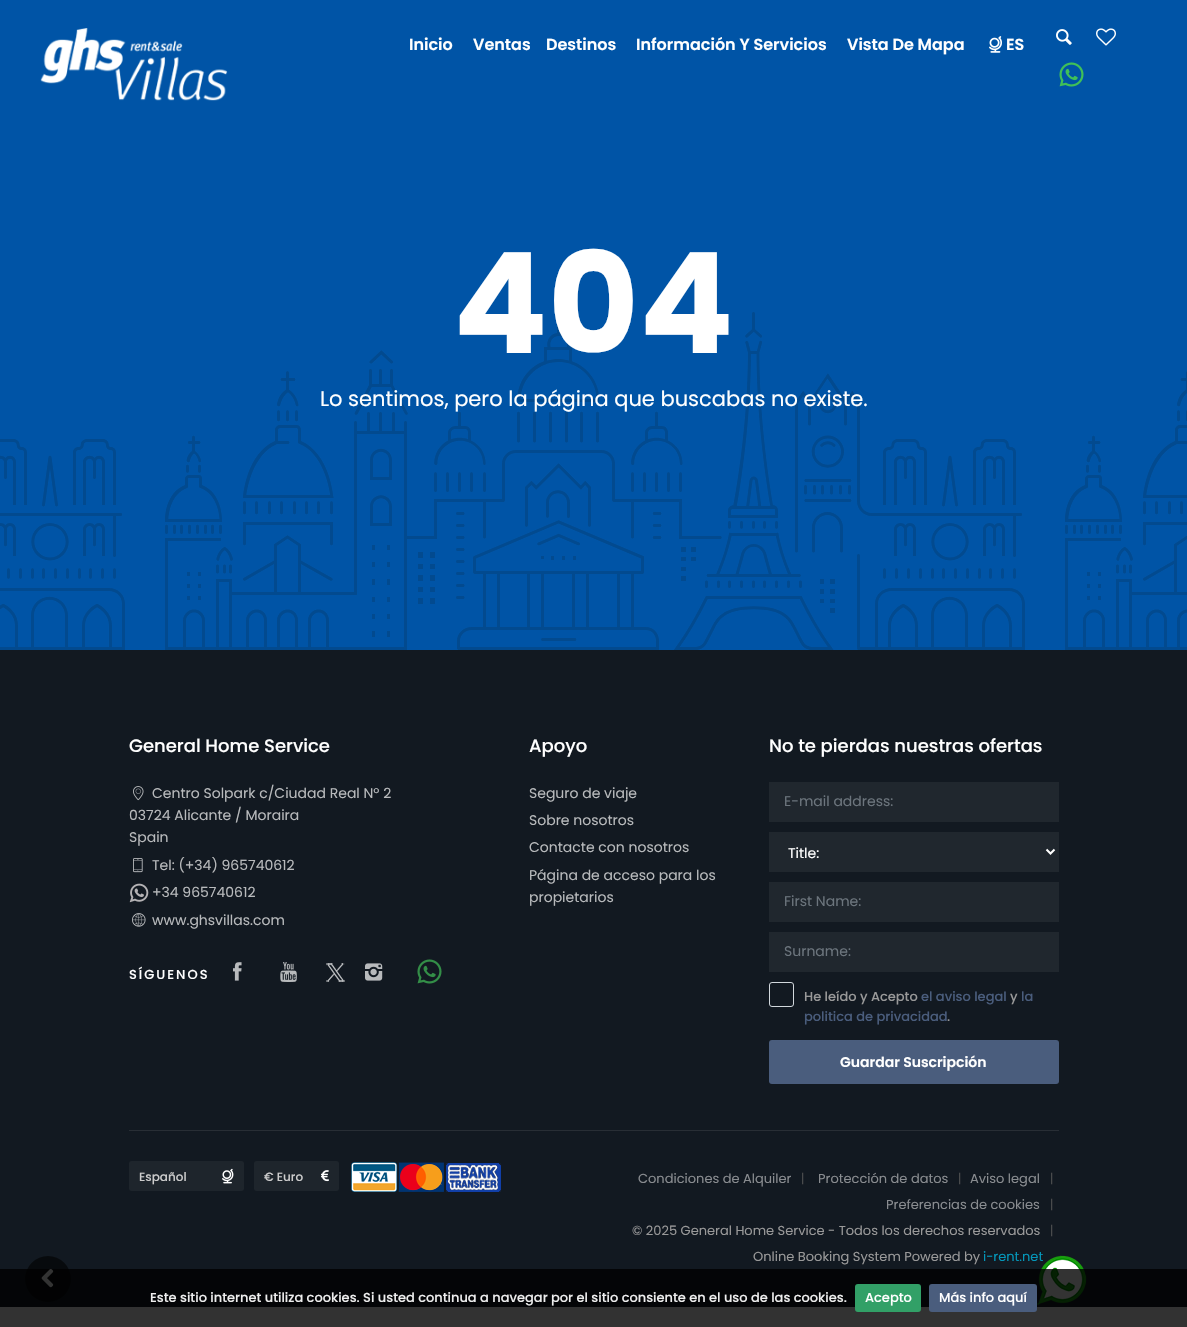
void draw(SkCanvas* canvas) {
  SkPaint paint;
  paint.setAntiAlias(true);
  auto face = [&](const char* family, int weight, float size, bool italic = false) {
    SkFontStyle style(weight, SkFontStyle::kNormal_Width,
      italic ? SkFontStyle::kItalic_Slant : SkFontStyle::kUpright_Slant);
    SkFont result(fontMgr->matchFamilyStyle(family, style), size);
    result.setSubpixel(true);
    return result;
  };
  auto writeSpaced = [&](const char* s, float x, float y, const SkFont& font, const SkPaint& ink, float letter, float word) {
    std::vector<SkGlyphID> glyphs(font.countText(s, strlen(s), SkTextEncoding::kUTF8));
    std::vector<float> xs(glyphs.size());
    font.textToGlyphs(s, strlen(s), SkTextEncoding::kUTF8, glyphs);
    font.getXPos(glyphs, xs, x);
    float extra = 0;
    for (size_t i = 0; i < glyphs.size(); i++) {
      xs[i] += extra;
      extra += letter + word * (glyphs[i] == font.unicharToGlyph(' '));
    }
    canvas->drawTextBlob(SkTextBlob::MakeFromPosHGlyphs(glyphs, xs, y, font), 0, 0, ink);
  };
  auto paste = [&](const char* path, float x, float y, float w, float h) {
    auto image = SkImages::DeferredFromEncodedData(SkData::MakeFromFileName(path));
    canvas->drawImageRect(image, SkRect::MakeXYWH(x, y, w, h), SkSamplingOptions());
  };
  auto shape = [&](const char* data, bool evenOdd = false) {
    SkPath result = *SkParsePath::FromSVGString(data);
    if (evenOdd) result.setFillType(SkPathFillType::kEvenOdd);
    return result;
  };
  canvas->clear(0xfff8f8f8);
  paint.setColor(0xff0054a6);
  canvas->drawRect(SkRect::MakeXYWH(0, 0, 1187, 650), paint);
  paste("img/1.png", 40, 28, 188, 73);
  paste("img/2.png", 989, 36, 13, 17);
  paste("img/3.png", 1056, 29, 16, 16);
  paste("img/4.png", 1096, 28, 20, 18);
  paste("img/5.png", 1059, 62, 25, 25);
  paste("img/6.png", 0, 312, 1187, 338);
  paint.setColor(0xff121921);
  canvas->drawRect(SkRect::MakeXYWH(0, 650, 1187, 657), paint);
  paste("img/7.png", 133, 786, 11, 15);
  paste("img/8.png", 133, 858, 10, 15);
  paste("img/9.png", 129, 883, 20, 20);
  paste("img/10.png", 132, 913, 14, 14);
  paste("img/11.png", 233, 962, 9, 19);
  paste("img/12.png", 280, 962, 17, 20);
  paste("img/13.png", 326, 963, 19, 19);
  paste("img/14.png", 365, 963, 18, 18);
  paste("img/15.png", 417, 959, 25, 25);
  paint.setColor(0xff20272e);
  canvas->drawRect(SkRect::MakeXYWH(769, 782, 290, 40), paint);
  canvas->drawRect(SkRect::MakeXYWH(769, 832, 290, 40), paint);
  paint.setStroke(true);
  paint.setStrokeWidth(2);
  paint.setColor(0xffffffff);
  canvas->drawPath(shape("M1046.5 849.5L1050.5 853.5L1054.5 849.5"), paint);
  paint.setStroke(false);
  paint.setColor(0xff20272e);
  canvas->drawRect(SkRect::MakeXYWH(769, 882, 290, 40), paint);
  canvas->drawRect(SkRect::MakeXYWH(769, 932, 290, 40), paint);
  paint.setStroke(true);
  paint.setStrokeWidth(1);
  paint.setColor(0xffd2d8dd);
  canvas->drawRoundRect(SkRect::MakeXYWH(769.5f, 982.5f, 24, 24), 2.5f, 2.5f, paint);
  paint.setStroke(false);
  paint.setColor(0xff4a5d7d);
  canvas->drawRoundRect(SkRect::MakeXYWH(769, 1040, 290, 44), 3, 3, paint);
  paint.setColor(0xff282e35);
  canvas->drawRect(SkRect::MakeXYWH(129, 1130, 930, 1), paint);
  paint.setColor(0xff1e252c);
  canvas->drawRoundRect(SkRect::MakeXYWH(129, 1161, 115, 30), 3, 3, paint);
  paste("img/16.png", 222, 1168, 12, 16);
  canvas->drawRoundRect(SkRect::MakeXYWH(254, 1161, 85, 30), 3, 3, paint);
  paste("img/17.png", 321, 1170, 8, 12);
  paste("img/18.png", 351, 1162, 150, 30);
  paint.setColor(0xff070a0d);
  canvas->drawCircle(48, 1279, 23, paint);
  paste("img/20.png", 41, 1269, 13, 19);
  auto f0 = face("Poppins", 600, 16);
  paint.setColor(0xffffffff);
  {
    const struct { const char* s; float x, y; } items[] = {
      {"Inicio", 409, 50},
      {"Ventas", 473, 50},
      {"Destinos", 546, 50},
      {"Información Y Servicios", 636, 50},
      {"Vista De Mapa", 847, 50},
      {"ES", 1006, 50},
    };
    for (auto [s, x, y] : items) {
      canvas->drawString(s, x, y, f0, paint);
    }
  }
  auto f1 = face("Poppins", 700, 140);
  canvas->drawString("404", 453, 353, f1, paint);
  auto f2 = face("Poppins", 400, 21);
  canvas->drawString("Lo sentimos, pero la página que buscabas no existe.", 320, 406, f2, paint);
  auto f3 = face("Poppins", 500, 18);
  canvas->drawString("General Home Service", 129, 752, f3, paint);
  auto f4 = face("Poppins", 400, 14);
  paint.setColor(0xffb8babc);
  {
    const struct { const char* s; float x, y; } items[] = {
      {"Centro Solpark c/Ciudad Real Nº 2", 152, 798},
      {"03724 Alicante / Moraira", 129, 820},
      {"Spain", 129, 842},
      {"Tel: (+34) 965740612", 152, 870},
      {"+34 965740612", 152, 897},
      {"www.ghsvillas.com", 152, 925},
    };
    for (auto [s, x, y] : items) {
      canvas->drawString(s, x, y, f4, paint);
    }
  }
  auto f5 = face("Poppins", 500, 13);
  paint.setColor(0xffffffff);
  writeSpaced("SÍGUENOS", 129, 979, f5, paint, 2, 0);
  canvas->drawString("Apoyo", 529, 752, f3, paint);
  paint.setColor(0xffb8babc);
  {
    const struct { const char* s; float x, y; } items[] = {
      {"Seguro de viaje", 529, 798},
      {"Sobre nosotros", 529, 825},
      {"Contacte con nosotros", 529, 852},
      {"Página de acceso para los", 529, 880},
      {"propietarios", 529, 902},
    };
    for (auto [s, x, y] : items) {
      canvas->drawString(s, x, y, f4, paint);
    }
  }
  paint.setColor(0xffffffff);
  canvas->drawString("No te pierdas nuestras ofertas", 769, 752, f3, paint);
  paint.setColor(0xff6c757d);
  canvas->drawString("E-mail address:", 784, 806, f4, paint);
  paint.setColor(0xffffffff);
  canvas->drawString("Title:", 788, 858, f4, paint);
  paint.setColor(0xff6c757d);
  canvas->drawString("First Name:", 784, 906, f4, paint);
  canvas->drawString("Surname:", 784, 956, f4, paint);
  paint.setColor(0xff999999);
  canvas->drawString("He leído y Acepto", 804, 1001, f5, paint);
  paint.setColor(0xff4a5d7d);
  canvas->drawString("el aviso legal", 921, 1001, f5, paint);
  paint.setColor(0xff999999);
  canvas->drawString("y", 1010, 1001, f5, paint);
  paint.setColor(0xff4a5d7d);
  canvas->drawString("la", 1021, 1001, f5, paint);
  canvas->drawString("politica de privacidad", 804, 1021, f5, paint);
  paint.setColor(0xff999999);
  canvas->drawString(".", 947, 1021, f5, paint);
  auto f6 = face("Poppins", 600, 14);
  paint.setColor(0xffffffff);
  canvas->drawString("Guardar Suscripción", 840, 1067, f6, paint);
  auto f7 = face("Poppins", 500, 12);
  paint.setColor(0xffcccccc);
  canvas->drawString("Español", 139, 1181, f7, paint);
  canvas->drawString("€ Euro", 264, 1181, f7, paint);
  auto f8 = face("Poppins", 400, 13);
  paint.setColor(0xff898c90);
  canvas->drawString("Condiciones de Alquiler", 638, 1183, f8, paint);
  auto f9 = face("Poppins", 300, 13);
  paint.setColor(0xff555555);
  canvas->drawString("|", 801, 1183, f9, paint);
  paint.setColor(0xff898c90);
  canvas->drawString("Protección de datos", 818, 1183, f8, paint);
  paint.setColor(0xff555555);
  canvas->drawString("|", 958, 1183, f9, paint);
  paint.setColor(0xff898c90);
  canvas->drawString("Aviso legal", 970, 1183, f8, paint);
  paint.setColor(0xff555555);
  canvas->drawString("|", 1050, 1183, f9, paint);
  paint.setColor(0xff898c90);
  canvas->drawString("Preferencias de cookies", 886, 1209, f8, paint);
  paint.setColor(0xff555555);
  canvas->drawString("|", 1050, 1209, f9, paint);
  paint.setColor(0xff999999);
  canvas->drawString("© 2025 General Home Service - Todos los derechos reservados", 632, 1235, f8, paint);
  paint.setColor(0xff555555);
  canvas->drawString("|", 1050, 1235, f9, paint);
  paint.setColor(0xff999999);
  canvas->drawString("Online Booking System Powered by", 753, 1261, f8, paint);
  paint.setColor(0xff0497ba);
  canvas->drawString("i-rent.net", 983, 1261, f8, paint);
  paste("img/19.png", 1037, 1255, 50, 50);
  paint.setColor(0xcc000000);
  canvas->drawRect(SkRect::MakeXYWH(0, 1269, 1187, 58), paint);
  paint.setColor(0xffeeeeee);
  canvas->drawString("Este sitio internet utiliza cookies. Si usted continua a navegar por el sitio consiente en el uso de las cookies.", 150, 1302, f5, paint);
  paint.setColor(0xff32a067);
  canvas->drawRoundRect(SkRect::MakeXYWH(855, 1284, 66, 28), 3, 3, paint);
  paint.setColor(0xffffffff);
  canvas->drawString("Acepto", 865, 1302, f5, paint);
  paint.setColor(0xff4a5d7d);
  canvas->drawRoundRect(SkRect::MakeXYWH(929, 1284, 108, 28), 3, 3, paint);
  paint.setColor(0xffffffff);
  canvas->drawString("Más info aquí", 939, 1302, f5, paint);
}
